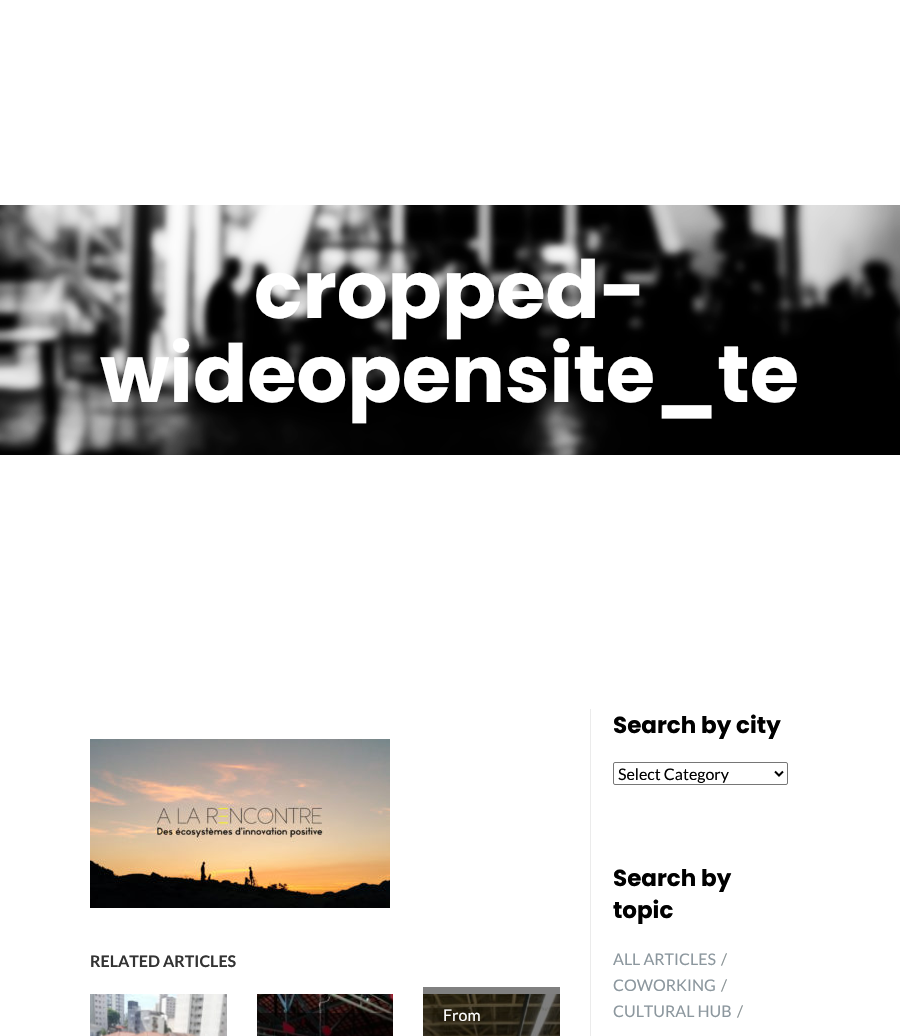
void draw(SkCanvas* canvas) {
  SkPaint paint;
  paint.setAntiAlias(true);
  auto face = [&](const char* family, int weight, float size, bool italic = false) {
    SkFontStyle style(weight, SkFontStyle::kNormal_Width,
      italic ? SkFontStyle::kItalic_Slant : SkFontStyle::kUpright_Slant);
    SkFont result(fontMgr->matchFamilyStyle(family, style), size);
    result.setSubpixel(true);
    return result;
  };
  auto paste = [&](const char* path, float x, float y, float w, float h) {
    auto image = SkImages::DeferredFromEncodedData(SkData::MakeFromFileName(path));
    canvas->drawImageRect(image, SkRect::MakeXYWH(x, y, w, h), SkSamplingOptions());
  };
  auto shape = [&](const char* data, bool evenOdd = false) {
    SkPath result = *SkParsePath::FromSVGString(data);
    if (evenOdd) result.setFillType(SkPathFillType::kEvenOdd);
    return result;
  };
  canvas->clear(0xffffffff);
  paint.setColor(0xff808080);
  canvas->drawRect(SkRect::MakeXYWH(423, 987, 137, 7), paint);
  paste("img/1.png", 0, 205, 900, 250);
  paste("img/2.png", 90, 739, 300, 169);
  paste("img/3.png", 90, 994, 137, 42);
  paste("img/4.png", 257, 994, 136, 42);
  paint.setColor(0x80000000);
  canvas->drawRect(SkRect::MakeXYWH(257, 1013, 136, 23), paint);
  paste("img/5.png", 423, 994, 137, 42);
  paint.setColor(0xffebebeb);
  canvas->drawRect(SkRect::MakeXYWH(590, 709, 1, 327), paint);
  paint.setStroke(true);
  paint.setStrokeWidth(1);
  paint.setColor(0xff767676);
  canvas->drawRoundRect(SkRect::MakeXYWH(613.5f, 762.5f, 174, 22), 1.5f, 1.5f, paint);
  paint.setStrokeWidth(2);
  paint.setColor(0xff000000);
  canvas->drawPath(shape("M775 771.5L779 775.5L783 771.5"), paint);
  auto f0 = face("Poppins", 700, 80);
  paint.setStroke(false);
  paint.setColor(0xffffffff);
  canvas->drawString("cropped-", 254, 318, f0, paint);
  canvas->drawString("wideopensite_te", 100, 402, f0, paint);
  auto f1 = face("Lato", 700, 16);
  paint.setColor(0xff333333);
  canvas->drawString("RELATED ARTICLES", 90, 967, f1, paint);
  auto f2 = face("Lato", 400, 16);
  paint.setColor(0xffffffff);
  canvas->drawString("From", 443, 1021, f2, paint);
  auto f3 = face("Poppins", 700, 23);
  paint.setColor(0xff000000);
  canvas->drawString("Search by city", 613, 733, f3, paint);
  canvas->drawString("Select Category", 618, 780, f2, paint);
  canvas->drawString("Search by", 613, 886, f3, paint);
  canvas->drawString("topic", 613, 918, f3, paint);
  paint.setColor(0xff8c979e);
  canvas->drawString("ALL ARTICLES", 613, 965, f2, paint);
  paint.setColor(0xff8c9597);
  canvas->drawString("/", 721, 965, f2, paint);
  paint.setColor(0xff8c979e);
  canvas->drawString("COWORKING", 613, 991, f2, paint);
  paint.setColor(0xff8c9597);
  canvas->drawString("/", 721, 991, f2, paint);
  paint.setColor(0xff8c979e);
  canvas->drawString("CULTURAL HUB", 613, 1017, f2, paint);
  paint.setColor(0xff8c9597);
  canvas->drawString("/", 737, 1017, f2, paint);
}
